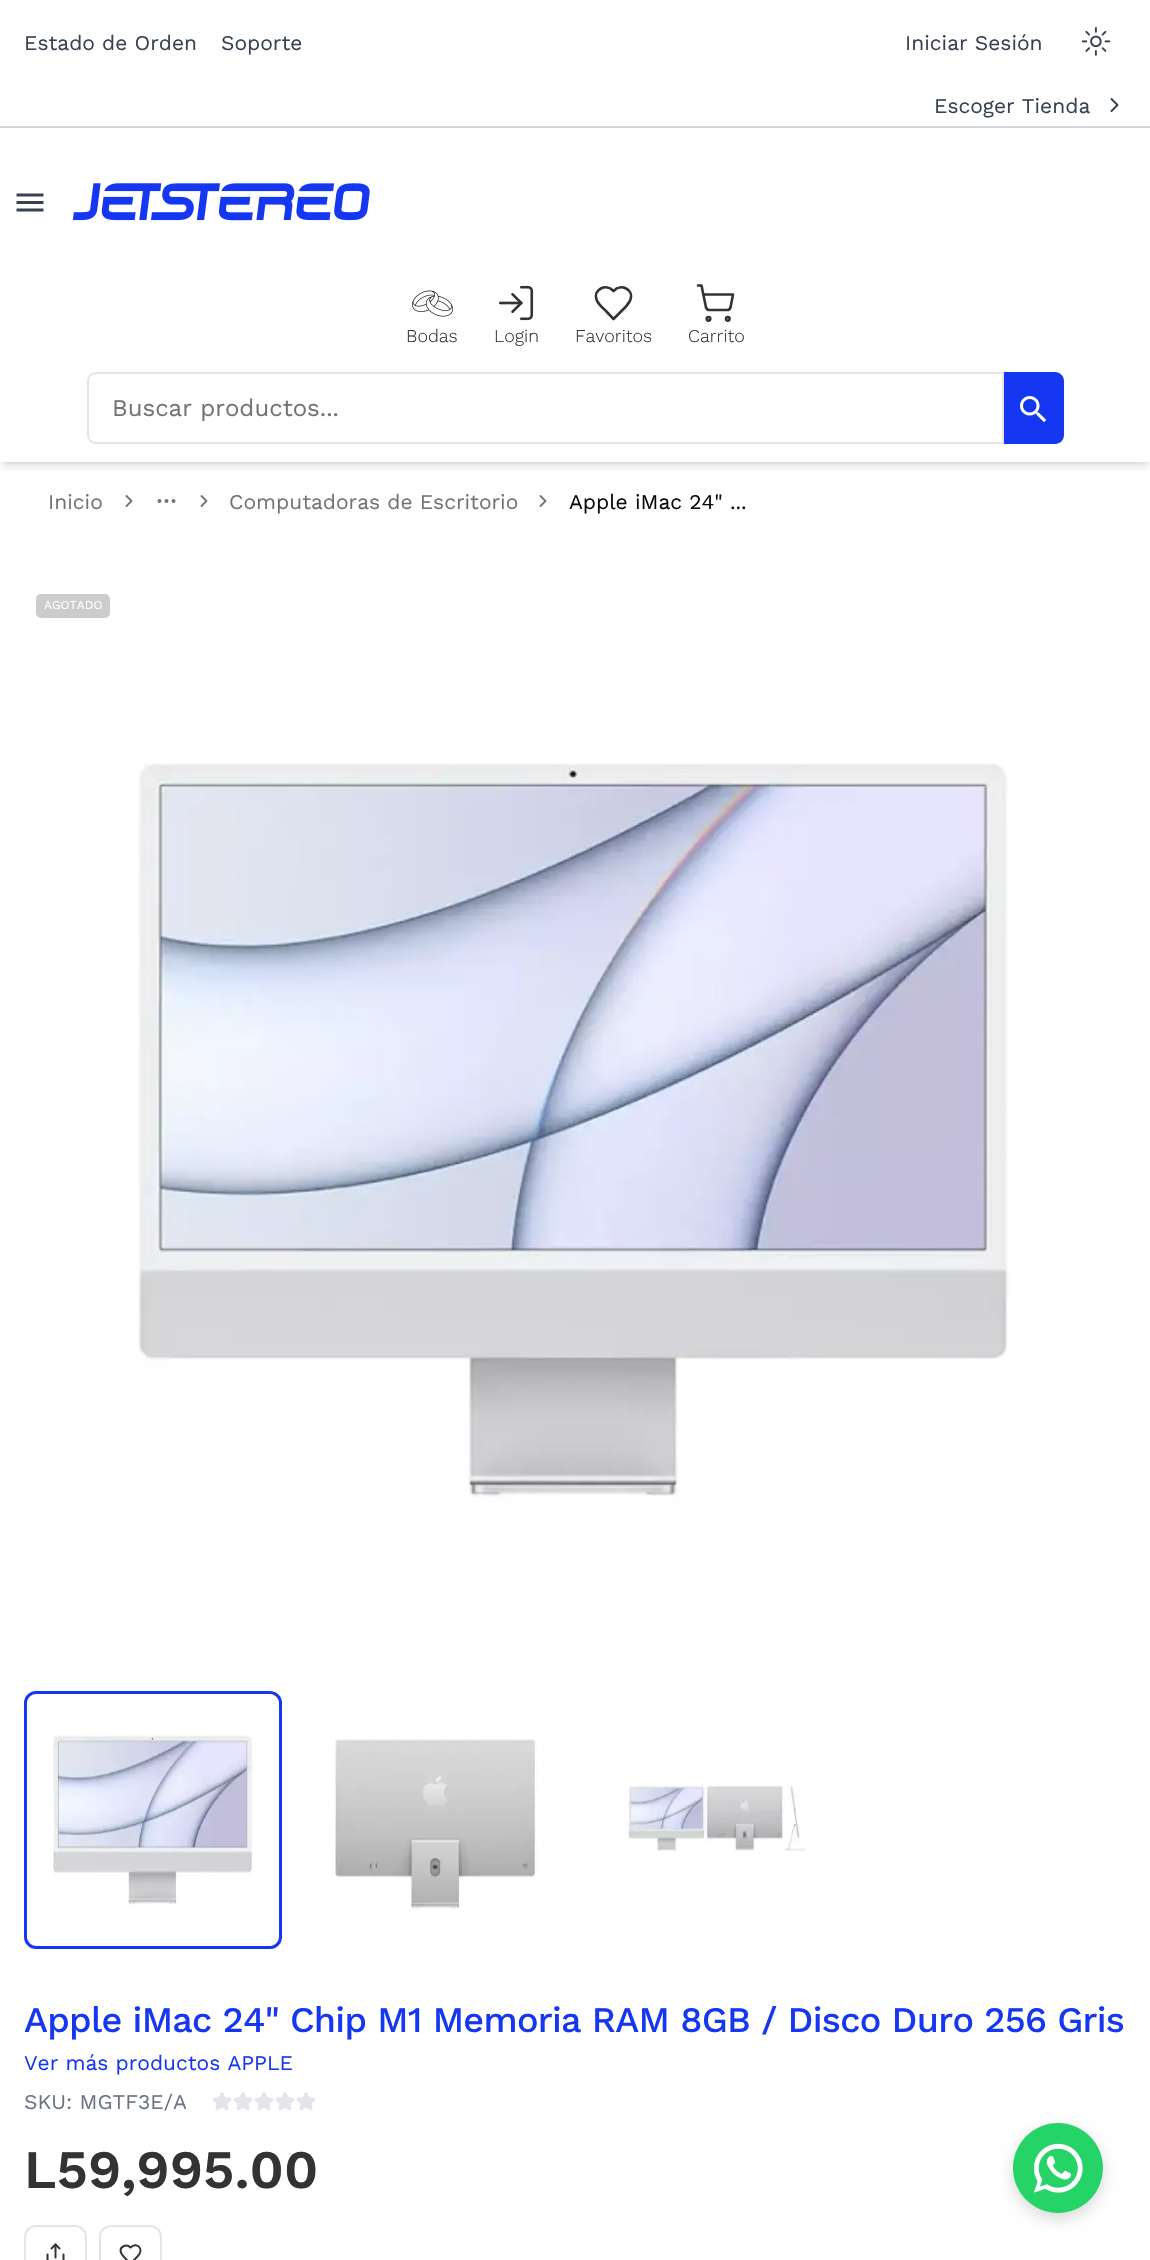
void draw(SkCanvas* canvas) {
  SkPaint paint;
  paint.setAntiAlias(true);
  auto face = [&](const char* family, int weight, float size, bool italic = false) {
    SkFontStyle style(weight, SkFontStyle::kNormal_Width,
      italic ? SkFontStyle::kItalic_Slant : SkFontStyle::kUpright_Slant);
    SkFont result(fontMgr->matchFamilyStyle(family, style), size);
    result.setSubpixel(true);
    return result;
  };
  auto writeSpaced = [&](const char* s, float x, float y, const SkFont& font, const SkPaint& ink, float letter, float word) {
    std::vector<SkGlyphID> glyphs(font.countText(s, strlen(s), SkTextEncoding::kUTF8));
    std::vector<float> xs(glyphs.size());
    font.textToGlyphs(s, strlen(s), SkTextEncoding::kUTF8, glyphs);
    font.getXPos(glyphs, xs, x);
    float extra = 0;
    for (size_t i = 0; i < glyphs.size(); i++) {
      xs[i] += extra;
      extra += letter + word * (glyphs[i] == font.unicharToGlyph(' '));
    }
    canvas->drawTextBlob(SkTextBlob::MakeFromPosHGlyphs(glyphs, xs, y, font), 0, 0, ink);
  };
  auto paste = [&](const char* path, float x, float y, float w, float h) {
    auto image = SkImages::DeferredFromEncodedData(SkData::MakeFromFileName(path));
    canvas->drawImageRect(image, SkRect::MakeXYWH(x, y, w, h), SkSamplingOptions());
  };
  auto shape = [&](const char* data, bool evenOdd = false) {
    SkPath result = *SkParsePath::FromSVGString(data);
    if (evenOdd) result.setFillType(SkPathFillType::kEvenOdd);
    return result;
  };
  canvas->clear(0xffffffff);
  paste("img/1.png", 1082, 27, 29, 29);
  paint.setColor(0xffd1d5db);
  canvas->drawRect(SkRect::MakeXYWH(0, 126, 1150, 2), paint);
  paint.setStroke(true);
  paint.setStrokeWidth(2);
  paint.setStrokeCap(SkPaint::kRound_Cap);
  paint.setStrokeJoin(SkPaint::kRound_Join);
  paint.setColor(0xff374151);
  canvas->drawPath(shape("M1111.5 111L1117.5 105L1111.5 99"), paint);
  canvas->save();
  canvas->clipRect(SkRect::MakeXYWH(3, 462, 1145, 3));
  paint.setStroke(false);
  paint.setColor(0x1a000000);
  paint.setMaskFilter(SkMaskFilter::MakeBlur(kNormal_SkBlurStyle, 3));
  canvas->drawRect(SkRect::MakeXYWH(3, 134, 1145, 328), paint);
  paint.setMaskFilter(nullptr);
  canvas->restore();
  canvas->save();
  canvas->clipRect(SkRect::MakeXYWH(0, 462, 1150, 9));
  paint.setMaskFilter(SkMaskFilter::MakeBlur(kNormal_SkBlurStyle, 4.5f));
  canvas->drawRect(SkRect::MakeXYWH(2, 135, 1147, 332), paint);
  paint.setMaskFilter(nullptr);
  canvas->restore();
  paste("img/2.png", 16, 193, 28, 19);
  paste("img/3.png", 72, 183, 298, 38);
  paste("img/4.png", 412, 290, 41, 27);
  paste("img/5.png", 499, 285, 35, 36);
  paint.setStroke(true);
  paint.setStrokeWidth(2.6f);
  paint.setColor(0xff333333);
  canvas->drawPath(shape("M626 306.5C627.5 304.5 629.5 302.5 630.5 299.5C634 289.5 621 283 613.5 291C606 283 593 289.5 596.5 299.5C598 304 602 307.5 605.5 310.5L613.5 319Z"), paint);
  paint.setStrokeCap(SkPaint::kButt_Cap);
  paint.setStrokeJoin(SkPaint::kMiter_Join);
  canvas->drawCircle(708.5f, 318.8f, 1.8f, paint);
  canvas->drawCircle(727.8f, 318.8f, 1.8f, paint);
  paint.setStrokeCap(SkPaint::kRound_Cap);
  paint.setStrokeJoin(SkPaint::kRound_Join);
  canvas->drawPath(shape("M698 285.5H701.5L706 307.5C706.5 309 708 310 709.5 310H727C728.5 310 730 309 730.5 307.5L733 294.5H703.5"), paint);
  paint.setStrokeWidth(2);
  paint.setStrokeCap(SkPaint::kButt_Cap);
  paint.setStrokeJoin(SkPaint::kMiter_Join);
  paint.setColor(0xffe5e5e5);
  canvas->drawPath(shape("M96 373H1003V443H96C91.5 443 88 439.5 88 435V381C88 376.5 91.5 373 96 373Z"), paint);
  paint.setStroke(false);
  paint.setColor(0xff1637f2);
  canvas->drawPath(shape("M1004 372H1055C1060 372 1064 376 1064 381V435C1064 440 1060 444 1055 444H1004Z"), paint);
  paste("img/6.png", 1020, 396, 27, 27);
  paint.setStroke(true);
  paint.setStrokeWidth(1.8f);
  paint.setStrokeCap(SkPaint::kRound_Cap);
  paint.setStrokeJoin(SkPaint::kRound_Join);
  paint.setColor(0xff737373);
  canvas->drawPath(shape("M126.5 506L131.5 501L126.5 496"), paint);
  paint.setStrokeWidth(2);
  paint.setStrokeCap(SkPaint::kButt_Cap);
  paint.setStrokeJoin(SkPaint::kMiter_Join);
  canvas->drawCircle(166.5f, 501, 1, paint);
  canvas->drawCircle(173.5f, 501, 1, paint);
  canvas->drawCircle(159.5f, 501, 1, paint);
  paint.setStrokeWidth(1.8f);
  paint.setStrokeCap(SkPaint::kRound_Cap);
  paint.setStrokeJoin(SkPaint::kRound_Join);
  canvas->drawPath(shape("M201.5 506L206.5 501L201.5 496"), paint);
  canvas->drawPath(shape("M540.5 506L545.5 501L540.5 496"), paint);
  paint.setStroke(false);
  paint.setColor(0xffcccccc);
  canvas->drawRoundRect(SkRect::MakeXYWH(36, 594, 74, 24), 5, 5, paint);
  paste("img/7.png", 138, 763, 871, 740);
  paint.setStroke(true);
  paint.setStrokeWidth(3);
  paint.setStrokeCap(SkPaint::kButt_Cap);
  paint.setStrokeJoin(SkPaint::kMiter_Join);
  paint.setColor(0xff1637f2);
  canvas->drawRoundRect(SkRect::MakeXYWH(25.5f, 1692.5f, 255, 255), 10.5f, 10.5f, paint);
  paste("img/8.png", 27, 1694, 252, 252);
  paste("img/9.png", 335, 1739, 202, 171);
  paste("img/10.png", 628, 1785, 178, 68);
  paste("img/11.png", 212, 2092, 20, 19);
  paste("img/11.png", 233, 2092, 20, 19);
  paste("img/11.png", 254, 2092, 20, 19);
  paste("img/11.png", 275, 2092, 20, 19);
  paste("img/11.png", 296, 2092, 20, 19);
  paint.setStrokeWidth(2);
  paint.setColor(0xffe5e5e5);
  canvas->drawRoundRect(SkRect::MakeXYWH(25, 2226, 61, 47), 11, 11, paint);
  paste("img/12.png", 46, 2243, 19, 17);
  canvas->drawRoundRect(SkRect::MakeXYWH(100, 2226, 61, 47), 11, 11, paint);
  paint.setStrokeCap(SkPaint::kRound_Cap);
  paint.setStrokeJoin(SkPaint::kRound_Join);
  paint.setColor(0xff333333);
  canvas->drawPath(shape("M137.5 2256.5C145 2249 136.5 2241.5 130.5 2247.5C126.5 2243.5 119 2246.5 121 2252.5C122 2256 128 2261 130.5 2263.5Z"), paint);
  paint.setStroke(false);
  paint.setColor(0x26000000);
  paint.setMaskFilter(SkMaskFilter::MakeBlur(kNormal_SkBlurStyle, 7.5f));
  canvas->drawRoundRect(SkRect::MakeXYWH(1013, 2129, 90, 90), 45, 45, paint);
  paint.setMaskFilter(nullptr);
  paint.setColor(0xff25d366);
  canvas->drawCircle(1058, 2168, 45, paint);
  paste("img/13.png", 1033, 2143, 50, 50);
  auto f0 = face("Work Sans", 400, 21);
  paint.setColor(0xff374151);
  {
    const struct { const char* s; float x, y; } items[] = {
      {"Estado de Orden", 24, 50},
      {"Soporte", 221, 50},
      {"Iniciar Sesión", 905, 50},
      {"Escoger Tienda", 934, 113},
    };
    for (auto [s, x, y] : items) {
      canvas->drawString(s, x, y, f0, paint);
    }
  }
  auto f1 = face("Work Sans", 300, 18);
  paint.setColor(0xff333333);
  {
    const struct { const char* s; float x, y; } items[] = {
      {"Bodas", 406, 342},
      {"Login", 494, 342},
      {"Favoritos", 575, 342},
      {"Carrito", 688, 342},
    };
    for (auto [s, x, y] : items) {
      canvas->drawString(s, x, y, f1, paint);
    }
  }
  auto f2 = face("Work Sans", 400, 24);
  paint.setColor(0xff737373);
  canvas->drawString("Buscar productos...", 112, 416, f2, paint);
  canvas->drawString("Inicio", 48, 509, f0, paint);
  canvas->drawString("Computadoras de Escritorio", 229, 509, f0, paint);
  paint.setColor(0xff0a0a0a);
  canvas->drawString("Apple iMac 24\" ...", 569, 509, f0, paint);
  auto f3 = face("Work Sans", 400, 12);
  paint.setColor(0xffffffff);
  canvas->drawString("AGOTADO", 44, 609, f3, paint);
  auto f4 = face("Work Sans", 500, 36);
  paint.setColor(0xff1637f2);
  writeSpaced("Apple iMac 24\" Chip M1 Memoria RAM 8GB / Disco Duro 256 Gris", 24, 2032, f4, paint, -0.72f, 0);
  canvas->drawString("Ver más productos APPLE", 24, 2070, f0, paint);
  paint.setColor(0xff6b7280);
  canvas->drawString("SKU: MGTF3E/A", 24, 2109, f0, paint);
  auto f5 = face("Work Sans", 600, 54);
  paint.setColor(0xff333333);
  canvas->drawString("L59,995.00", 24, 2188, f5, paint);
}
